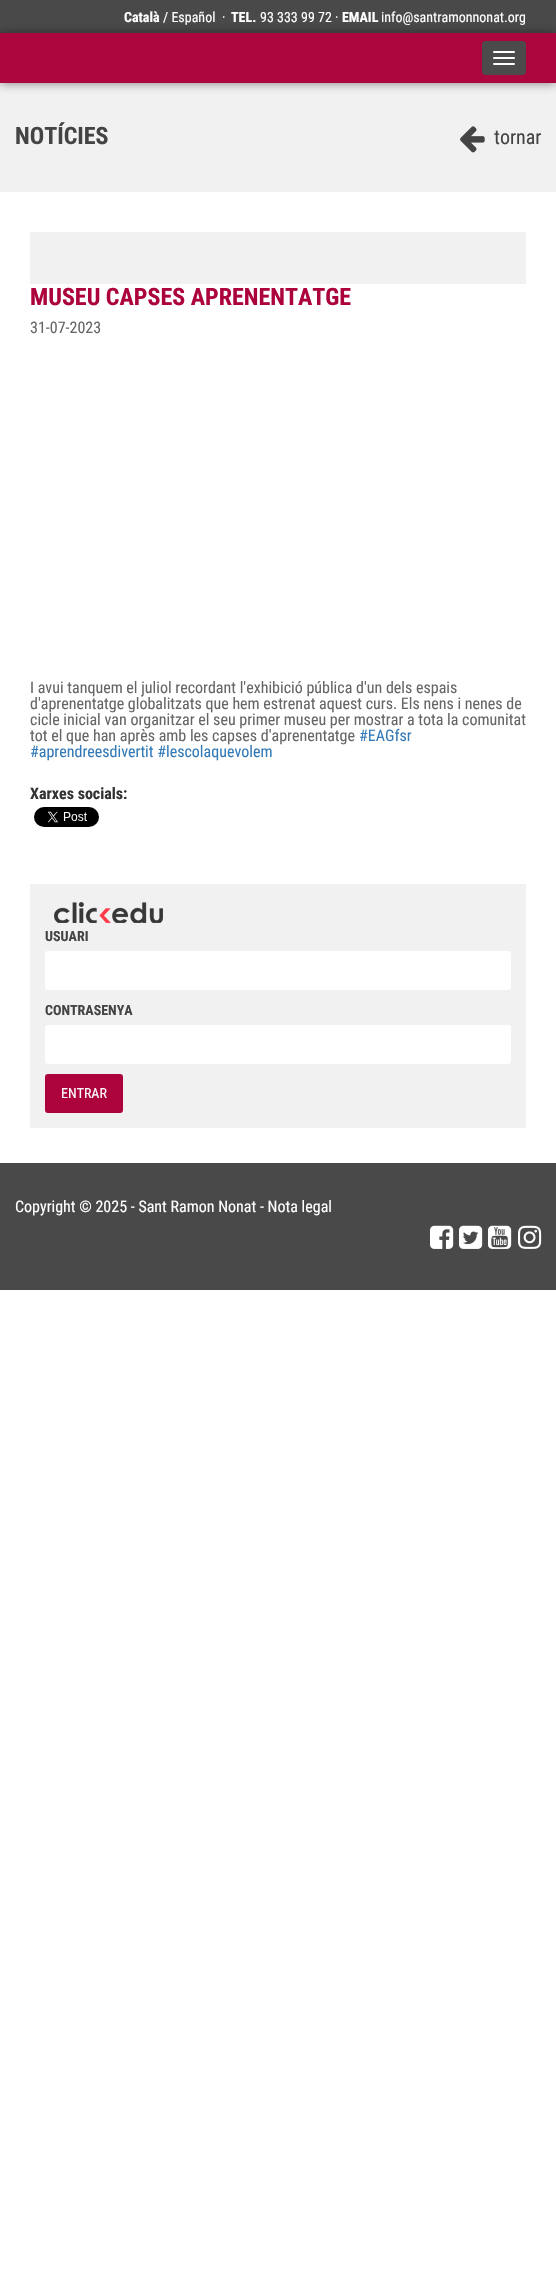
void draw(SkCanvas* canvas) {
  SkPaint paint;
  paint.setAntiAlias(true);
  auto face = [&](const char* family, int weight, float size, bool italic = false) {
    SkFontStyle style(weight, SkFontStyle::kNormal_Width,
      italic ? SkFontStyle::kItalic_Slant : SkFontStyle::kUpright_Slant);
    SkFont result(fontMgr->matchFamilyStyle(family, style), size);
    result.setSubpixel(true);
    return result;
  };
  auto paste = [&](const char* path, float x, float y, float w, float h) {
    auto image = SkImages::DeferredFromEncodedData(SkData::MakeFromFileName(path));
    canvas->drawImageRect(image, SkRect::MakeXYWH(x, y, w, h), SkSamplingOptions());
  };
  canvas->clear(0xffffffff);
  paint.setColor(0xff494949);
  canvas->drawRect(SkRect::MakeXYWH(0, 0, 556, 33), paint);
  paint.setColor(0xfff1f1f1);
  canvas->drawRect(SkRect::MakeXYWH(0, 83, 556, 109), paint);
  paint.setColor(0x85131215);
  paint.setMaskFilter(SkMaskFilter::MakeBlur(kNormal_SkBlurStyle, 5));
  canvas->drawRect(SkRect::MakeXYWH(0, 33, 556, 50), paint);
  paint.setMaskFilter(nullptr);
  paint.setColor(0xffad063e);
  canvas->drawRect(SkRect::MakeXYWH(0, 33, 556, 50), paint);
  paint.setColor(0xff4b4b4b);
  canvas->drawRoundRect(SkRect::MakeXYWH(482, 41, 44, 34), 4, 4, paint);
  paint.setColor(0xffffffff);
  canvas->drawRoundRect(SkRect::MakeXYWH(493, 51, 22, 2), 1, 1, paint);
  canvas->drawRoundRect(SkRect::MakeXYWH(493, 57, 22, 2), 1, 1, paint);
  canvas->drawRoundRect(SkRect::MakeXYWH(493, 63, 22, 2), 1, 1, paint);
  paste("img/1.png", 460, 126, 25, 27);
  paint.setColor(0xfff1f1f1);
  canvas->drawRect(SkRect::MakeXYWH(30, 232, 496, 52), paint);
  paste("img/2.png", 34, 807, 65, 20);
  canvas->drawRect(SkRect::MakeXYWH(30, 884, 496, 244), paint);
  paste("img/3.png", 54, 902, 109, 21);
  paint.setColor(0xffffffff);
  canvas->drawRoundRect(SkRect::MakeXYWH(45, 951, 466, 39), 3, 3, paint);
  canvas->drawRoundRect(SkRect::MakeXYWH(45, 1025, 466, 39), 3, 3, paint);
  paint.setColor(0xffac033c);
  canvas->drawRoundRect(SkRect::MakeXYWH(45, 1074, 78, 39), 3, 3, paint);
  paint.setColor(0xff494949);
  canvas->drawRect(SkRect::MakeXYWH(0, 1163, 556, 127), paint);
  paste("img/4.png", 430, 1225, 24, 24);
  paste("img/5.png", 459, 1225, 24, 24);
  paste("img/6.png", 488, 1225, 24, 24);
  paste("img/7.png", 518, 1225, 24, 24);
  auto f0 = face("Roboto Condensed", 700, 14);
  paint.setColor(0xffffffff);
  canvas->drawString("Català", 124, 22, f0, paint);
  auto f1 = face("Roboto Condensed", 400, 14);
  canvas->drawString("/ Español", 163, 22, f1, paint);
  canvas->drawString("·", 222, 22, f1, paint);
  canvas->drawString("TEL.", 231, 22, f0, paint);
  canvas->drawString("93 333 99 72 ·", 260, 22, f1, paint);
  canvas->drawString("EMAIL", 342, 22, f0, paint);
  canvas->drawString("info@santramonnonat.org", 381, 22, f1, paint);
  auto f2 = face("Roboto Condensed", 700, 24);
  paint.setColor(0xff444444);
  canvas->drawString("NOTÍCIES", 15, 144, f2, paint);
  auto f3 = face("Roboto Condensed", 400, 20);
  canvas->drawString("tornar", 494, 144, f3, paint);
  paint.setColor(0xffac033c);
  canvas->drawString("MUSEU CAPSES APRENENTATGE", 30, 305, f2, paint);
  auto f4 = face("Roboto Condensed", 400, 16);
  paint.setColor(0xff666666);
  {
    const struct { const char* s; float x, y; } items[] = {
      {"31-07-2023", 30, 333},
      {"I avui tanquem el juliol recordant l'exhibició pública d'un dels espais", 30, 693},
      {"d'aprenentatge globalitzats que hem estrenat aquest curs. Els nens i nenes de", 30, 709},
      {"cicle inicial van organitzar el seu primer museu per mostrar a tota la comunitat", 30, 725},
      {"tot el que han après amb les capses d'aprenentatge", 30, 741},
    };
    for (auto [s, x, y] : items) {
      canvas->drawString(s, x, y, f4, paint);
    }
  }
  paint.setColor(0xff337ab7);
  canvas->drawString("#EAGfsr", 359, 741, f4, paint);
  canvas->drawString("#aprendreesdivertit #lescolaquevolem", 30, 757, f4, paint);
  auto f5 = face("Roboto Condensed", 700, 16);
  paint.setColor(0xff333333);
  canvas->drawString("Xarxes socials:", 30, 799, f5, paint);
  paint.setColor(0xff444444);
  canvas->drawString("USUARI", 45, 941, f0, paint);
  canvas->drawString("CONTRASENYA", 45, 1015, f0, paint);
  paint.setColor(0xffffffff);
  canvas->drawString("ENTRAR", 61, 1098, f1, paint);
  canvas->drawString("Copyright © 2025 - Sant Ramon Nonat - Nota legal", 15, 1212, f4, paint);
}
